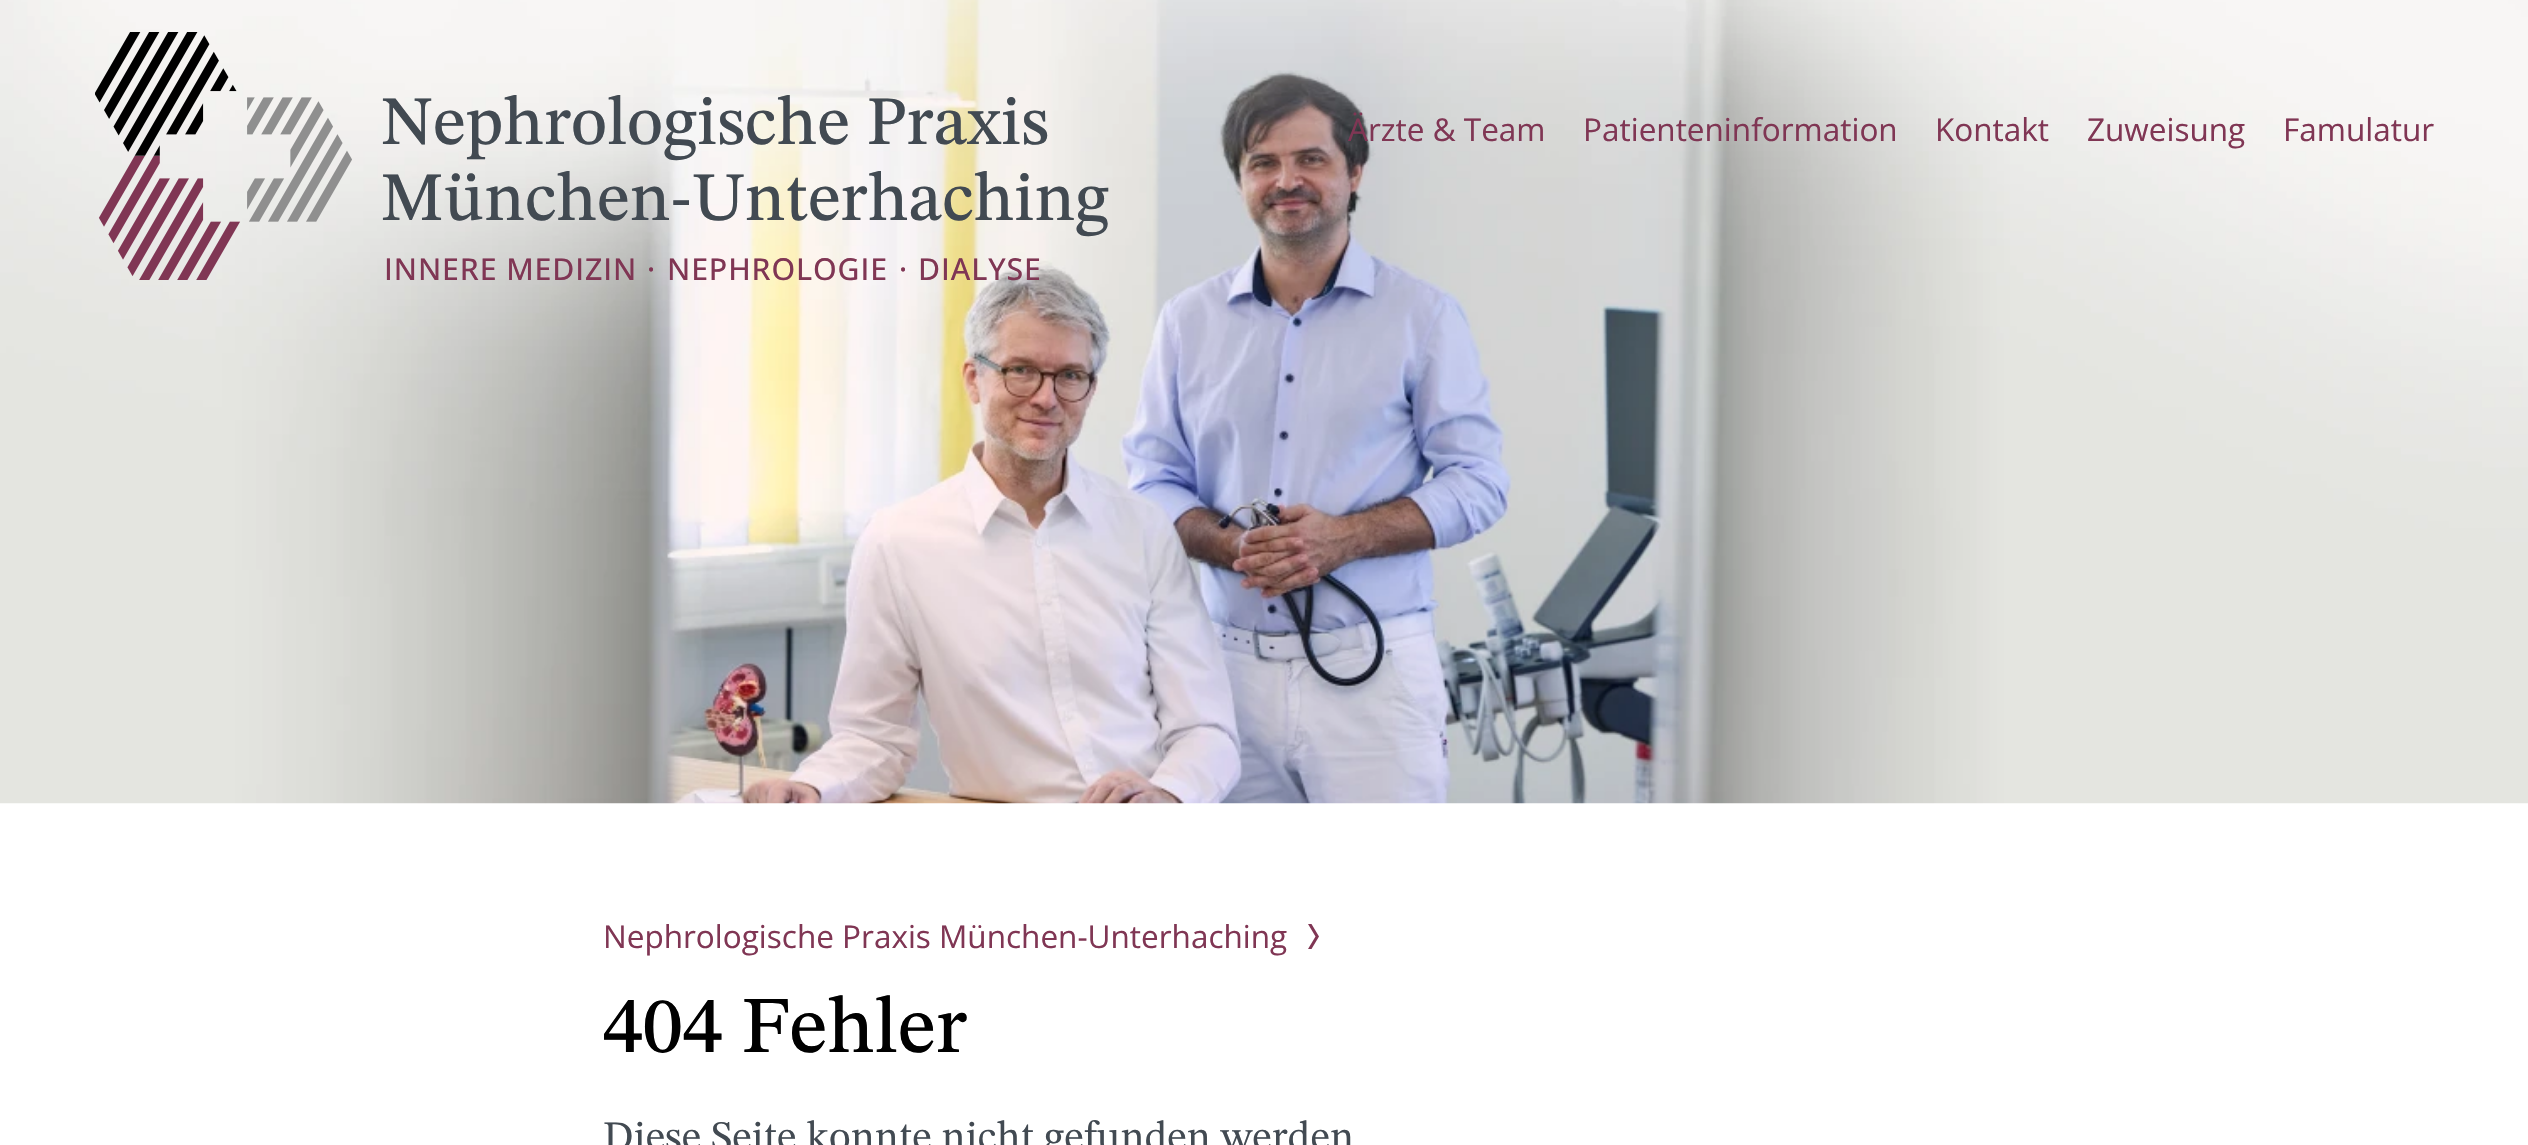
void draw(SkCanvas* canvas) {
  SkPaint paint;
  paint.setAntiAlias(true);
  auto face = [&](const char* family, int weight, float size, bool italic = false) {
    SkFontStyle style(weight, SkFontStyle::kNormal_Width,
      italic ? SkFontStyle::kItalic_Slant : SkFontStyle::kUpright_Slant);
    SkFont result(fontMgr->matchFamilyStyle(family, style), size);
    result.setSubpixel(true);
    return result;
  };
  auto writeSpaced = [&](const char* s, float x, float y, const SkFont& font, const SkPaint& ink, float letter, float word) {
    std::vector<SkGlyphID> glyphs(font.countText(s, strlen(s), SkTextEncoding::kUTF8));
    std::vector<float> xs(glyphs.size());
    font.textToGlyphs(s, strlen(s), SkTextEncoding::kUTF8, glyphs);
    font.getXPos(glyphs, xs, x);
    float extra = 0;
    for (size_t i = 0; i < glyphs.size(); i++) {
      xs[i] += extra;
      extra += letter + word * (glyphs[i] == font.unicharToGlyph(' '));
    }
    canvas->drawTextBlob(SkTextBlob::MakeFromPosHGlyphs(glyphs, xs, y, font), 0, 0, ink);
  };
  auto paste = [&](const char* path, float x, float y, float w, float h) {
    auto image = SkImages::DeferredFromEncodedData(SkData::MakeFromFileName(path));
    canvas->drawImageRect(image, SkRect::MakeXYWH(x, y, w, h), SkSamplingOptions());
  };
  auto shape = [&](const char* data, bool evenOdd = false) {
    SkPath result = *SkParsePath::FromSVGString(data);
    if (evenOdd) result.setFillType(SkPathFillType::kEvenOdd);
    return result;
  };
  canvas->clear(0xffffffff);
  paste("img/1.png", 0, 0, 2528, 804);
  paste("img/2.png", 95, 32, 257, 248);
  paint.setColor(0xff803654);
  canvas->drawPath(shape("M1308 949H1311.5L1319 936.5L1311.5 924H1308L1315.5 936.5Z"), paint);
  auto f0 = face("STIX Two Text", 400, 69.25f);
  paint.setColor(0xff424a52);
  canvas->drawString("Nephrologische Praxis", 381, 144, f0, paint);
  canvas->drawString("München-Unterhaching", 381, 220, f0, paint);
  auto f1 = face("Open Sans", 400, 31.5f);
  paint.setColor(0xff803654);
  {
    const struct { const char* s; float x, y; } items[] = {
      {"Ärzte & Team", 1348, 141},
      {"Patienteninformation", 1583, 141},
      {"Kontakt", 1935, 141},
      {"Zuweisung", 2087, 141},
      {"Famulatur", 2283, 141},
    };
    for (auto [s, x, y] : items) {
      canvas->drawString(s, x, y, f1, paint);
    }
  }
  auto f2 = face("Open Sans", 500, 30.25f);
  {
    const struct { const char* s; float x, y; } items[] = {
      {"INNERE MEDIZIN", 384, 280},
      {"·", 647, 280},
      {"NEPHROLOGIE", 667, 280},
      {"·", 899, 280},
      {"DIALYSE", 918, 280},
    };
    for (auto [s, x, y] : items) {
      writeSpaced(s, x, y, f2, paint, 0.9f, 0);
    }
  }
  canvas->drawString("Nephrologische Praxis München-Unterhaching", 603, 948, f1, paint);
  auto f3 = face("STIX Two Text", 400, 80.5f);
  paint.setColor(0xff000000);
  canvas->drawString("404 Fehler", 603, 1052, f3, paint);
  auto f4 = face("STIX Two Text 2", 400, 42);
  paint.setColor(0xff424a52);
  canvas->drawString("Diese Seite konnte nicht gefunden werden", 603, 1150, f4, paint);
}
